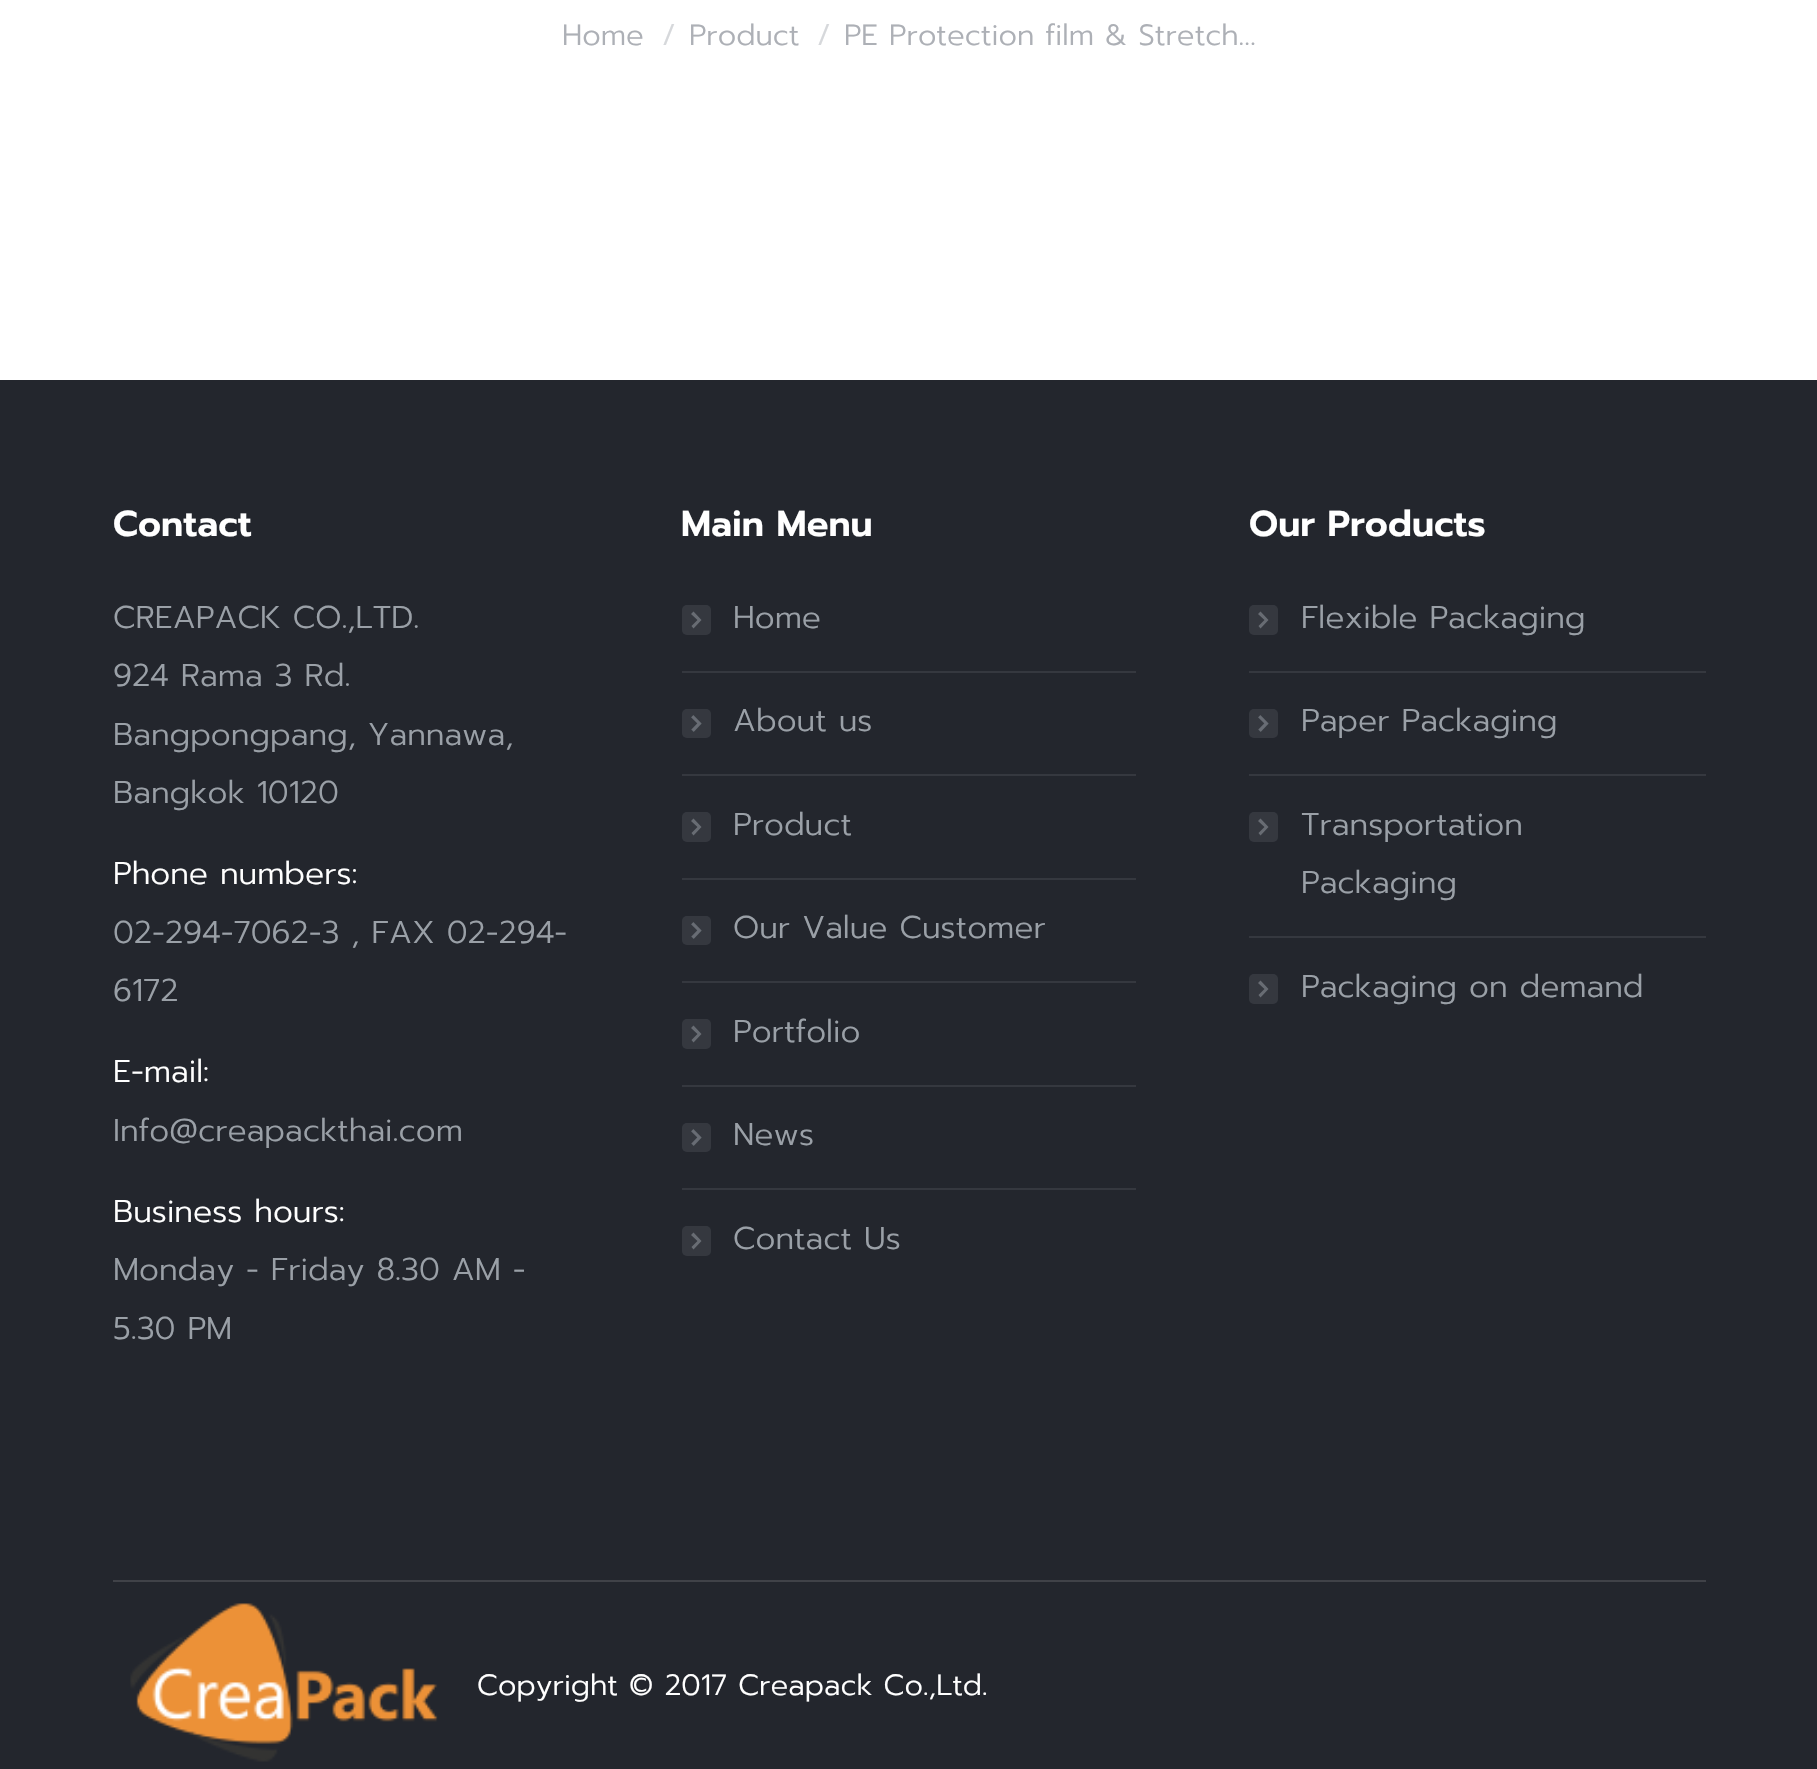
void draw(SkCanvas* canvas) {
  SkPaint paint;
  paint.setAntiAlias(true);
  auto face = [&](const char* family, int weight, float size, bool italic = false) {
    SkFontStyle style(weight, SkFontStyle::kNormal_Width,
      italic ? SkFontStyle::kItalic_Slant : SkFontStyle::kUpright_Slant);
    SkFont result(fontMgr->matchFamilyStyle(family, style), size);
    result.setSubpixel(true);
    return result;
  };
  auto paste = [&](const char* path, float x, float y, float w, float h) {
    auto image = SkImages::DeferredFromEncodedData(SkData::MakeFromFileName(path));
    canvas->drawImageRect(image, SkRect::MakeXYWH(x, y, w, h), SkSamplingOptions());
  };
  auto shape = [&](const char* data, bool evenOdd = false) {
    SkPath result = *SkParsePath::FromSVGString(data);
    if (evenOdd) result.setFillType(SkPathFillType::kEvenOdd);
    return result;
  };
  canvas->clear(0xffffffff);
  paint.setColor(0xff23262d);
  canvas->drawRect(SkRect::MakeXYWH(0, 380, 1817, 1389), paint);
  paint.setColor(0xff5f636a);
  canvas->drawPath(shape("M693.5 611.5L701.5 620L693.5 628.5L691.5 626L697.5 620L691 614Z"), paint);
  paint.setColor(0x269aa0a7);
  canvas->drawRoundRect(SkRect::MakeXYWH(682, 605, 29, 30), 5, 5, paint);
  paint.setColor(0xff35383f);
  canvas->drawRect(SkRect::MakeXYWH(682, 671, 454, 2), paint);
  paste("img/1.png", 691, 715, 11, 17);
  paint.setColor(0x269aa0a7);
  canvas->drawRoundRect(SkRect::MakeXYWH(682, 709, 29, 29), 5, 5, paint);
  paint.setColor(0xff35383f);
  canvas->drawRect(SkRect::MakeXYWH(682, 774, 454, 2), paint);
  paint.setColor(0xff5f636a);
  canvas->drawPath(shape("M693.5 818.5L701.5 827L693.5 835.5L691.5 833L697.5 827L691 821Z"), paint);
  paint.setColor(0x269aa0a7);
  canvas->drawRoundRect(SkRect::MakeXYWH(682, 812, 29, 30), 5, 5, paint);
  paint.setColor(0xff35383f);
  canvas->drawRect(SkRect::MakeXYWH(682, 878, 454, 2), paint);
  paste("img/1.png", 691, 922, 11, 17);
  paint.setColor(0x269aa0a7);
  canvas->drawRoundRect(SkRect::MakeXYWH(682, 916, 29, 29), 5, 5, paint);
  paint.setColor(0xff35383f);
  canvas->drawRect(SkRect::MakeXYWH(682, 981, 454, 2), paint);
  paint.setColor(0xff5f636a);
  canvas->drawPath(shape("M693.5 1025.5L701.5 1034L693.5 1042.5L691.5 1040L697.5 1034L691 1028Z"), paint);
  paint.setColor(0x269aa0a7);
  canvas->drawRoundRect(SkRect::MakeXYWH(682, 1019, 29, 30), 5, 5, paint);
  paint.setColor(0xff35383f);
  canvas->drawRect(SkRect::MakeXYWH(682, 1085, 454, 2), paint);
  paste("img/1.png", 691, 1129, 11, 17);
  paint.setColor(0x269aa0a7);
  canvas->drawRoundRect(SkRect::MakeXYWH(682, 1123, 29, 29), 5, 5, paint);
  paint.setColor(0xff35383f);
  canvas->drawRect(SkRect::MakeXYWH(682, 1188, 454, 2), paint);
  paint.setColor(0xff5f636a);
  canvas->drawPath(shape("M693.5 1232.5L701.5 1241L693.5 1249.5L691.5 1247L697.5 1241L691 1235Z"), paint);
  paint.setColor(0x269aa0a7);
  canvas->drawRoundRect(SkRect::MakeXYWH(682, 1226, 29, 30), 5, 5, paint);
  paint.setColor(0xff5f636a);
  canvas->drawPath(shape("M1260.5 611.5L1268.5 620L1260.5 628.5L1258.5 626L1264.5 620L1258 614Z"), paint);
  paint.setColor(0x269aa0a7);
  canvas->drawRoundRect(SkRect::MakeXYWH(1249, 605, 29, 30), 5, 5, paint);
  paint.setColor(0xff35383f);
  canvas->drawRect(SkRect::MakeXYWH(1249, 671, 457, 2), paint);
  paste("img/1.png", 1258, 715, 11, 17);
  paint.setColor(0x269aa0a7);
  canvas->drawRoundRect(SkRect::MakeXYWH(1249, 709, 29, 29), 5, 5, paint);
  paint.setColor(0xff35383f);
  canvas->drawRect(SkRect::MakeXYWH(1249, 774, 457, 2), paint);
  paint.setColor(0xff5f636a);
  canvas->drawPath(shape("M1260.5 818.5L1268.5 827L1260.5 835.5L1258.5 833L1264.5 827L1258 821Z"), paint);
  paint.setColor(0x269aa0a7);
  canvas->drawRoundRect(SkRect::MakeXYWH(1249, 812, 29, 30), 5, 5, paint);
  paint.setColor(0xff35383f);
  canvas->drawRect(SkRect::MakeXYWH(1249, 936, 457, 2), paint);
  paint.setColor(0xff5f636a);
  canvas->drawPath(shape("M1260.5 980.5L1268.5 989L1260.5 997.5L1258.5 995L1264.5 989L1258 983Z"), paint);
  paint.setColor(0x269aa0a7);
  canvas->drawRoundRect(SkRect::MakeXYWH(1249, 974, 29, 30), 5, 5, paint);
  paint.setColor(0xff404248);
  canvas->drawRect(SkRect::MakeXYWH(113, 1580, 1593, 2), paint);
  paste("img/2.png", 130, 1603, 308, 159);
  auto f0 = face("Prompt", 300, 29.25f);
  paint.setColor(0xffadb0b6);
  canvas->drawString("Home", 562, 45, f0, paint);
  paint.setColor(0xffd6d8db);
  canvas->drawString("/", 662, 45, f0, paint);
  paint.setColor(0xffadb0b6);
  canvas->drawString("Product", 689, 45, f0, paint);
  paint.setColor(0xffd6d8db);
  canvas->drawString("/", 817, 45, f0, paint);
  paint.setColor(0xffadb0b6);
  canvas->drawString("PE Protection film & Stretch…", 844, 45, f0, paint);
  auto f1 = face("Prompt", 600, 36);
  paint.setColor(0xffffffff);
  canvas->drawString("Contact", 113, 536, f1, paint);
  auto f2 = face("Prompt", 300, 31.5f);
  paint.setColor(0xff9aa0a7);
  {
    const struct { const char* s; float x, y; } items[] = {
      {"CREAPACK CO.,LTD.", 113, 628},
      {"924 Rama 3 Rd.", 113, 686},
      {"Bangpongpang, Yannawa,", 113, 745},
      {"Bangkok 10120", 113, 803},
    };
    for (auto [s, x, y] : items) {
      canvas->drawString(s, x, y, f2, paint);
    }
  }
  paint.setColor(0xffffffff);
  canvas->drawString("Phone numbers:", 113, 884, f2, paint);
  paint.setColor(0xff9aa0a7);
  canvas->drawString("02-294-7062-3 , FAX 02-294-", 113, 943, f2, paint);
  canvas->drawString("6172", 113, 1001, f2, paint);
  paint.setColor(0xffffffff);
  canvas->drawString("E-mail:", 113, 1082, f2, paint);
  paint.setColor(0xff9aa0a7);
  canvas->drawString("Info@creapackthai.com", 113, 1141, f2, paint);
  paint.setColor(0xffffffff);
  canvas->drawString("Business hours:", 113, 1222, f2, paint);
  paint.setColor(0xff9aa0a7);
  canvas->drawString("Monday - Friday 8.30 AM -", 113, 1280, f2, paint);
  canvas->drawString("5.30 PM", 113, 1339, f2, paint);
  paint.setColor(0xffffffff);
  canvas->drawString("Main Menu", 681, 536, f1, paint);
  paint.setColor(0xff9aa0a7);
  {
    const struct { const char* s; float x, y; } items[] = {
      {"Home", 733, 628},
      {"About us", 733, 731},
      {"Product", 733, 835},
      {"Our Value Customer", 733, 938},
      {"Portfolio", 733, 1042},
      {"News", 733, 1145},
      {"Contact Us", 733, 1249},
    };
    for (auto [s, x, y] : items) {
      canvas->drawString(s, x, y, f2, paint);
    }
  }
  paint.setColor(0xffffffff);
  canvas->drawString("Our Products", 1249, 536, f1, paint);
  paint.setColor(0xff9aa0a7);
  {
    const struct { const char* s; float x, y; } items[] = {
      {"Flexible Packaging", 1301, 628},
      {"Paper Packaging", 1301, 731},
      {"Transportation", 1301, 835},
      {"Packaging", 1301, 893},
      {"Packaging on demand", 1301, 997},
    };
    for (auto [s, x, y] : items) {
      canvas->drawString(s, x, y, f2, paint);
    }
  }
  paint.setColor(0xffffffff);
  canvas->drawString("Copyright © 2017 Creapack Co.,Ltd.", 477, 1695, f0, paint);
}
